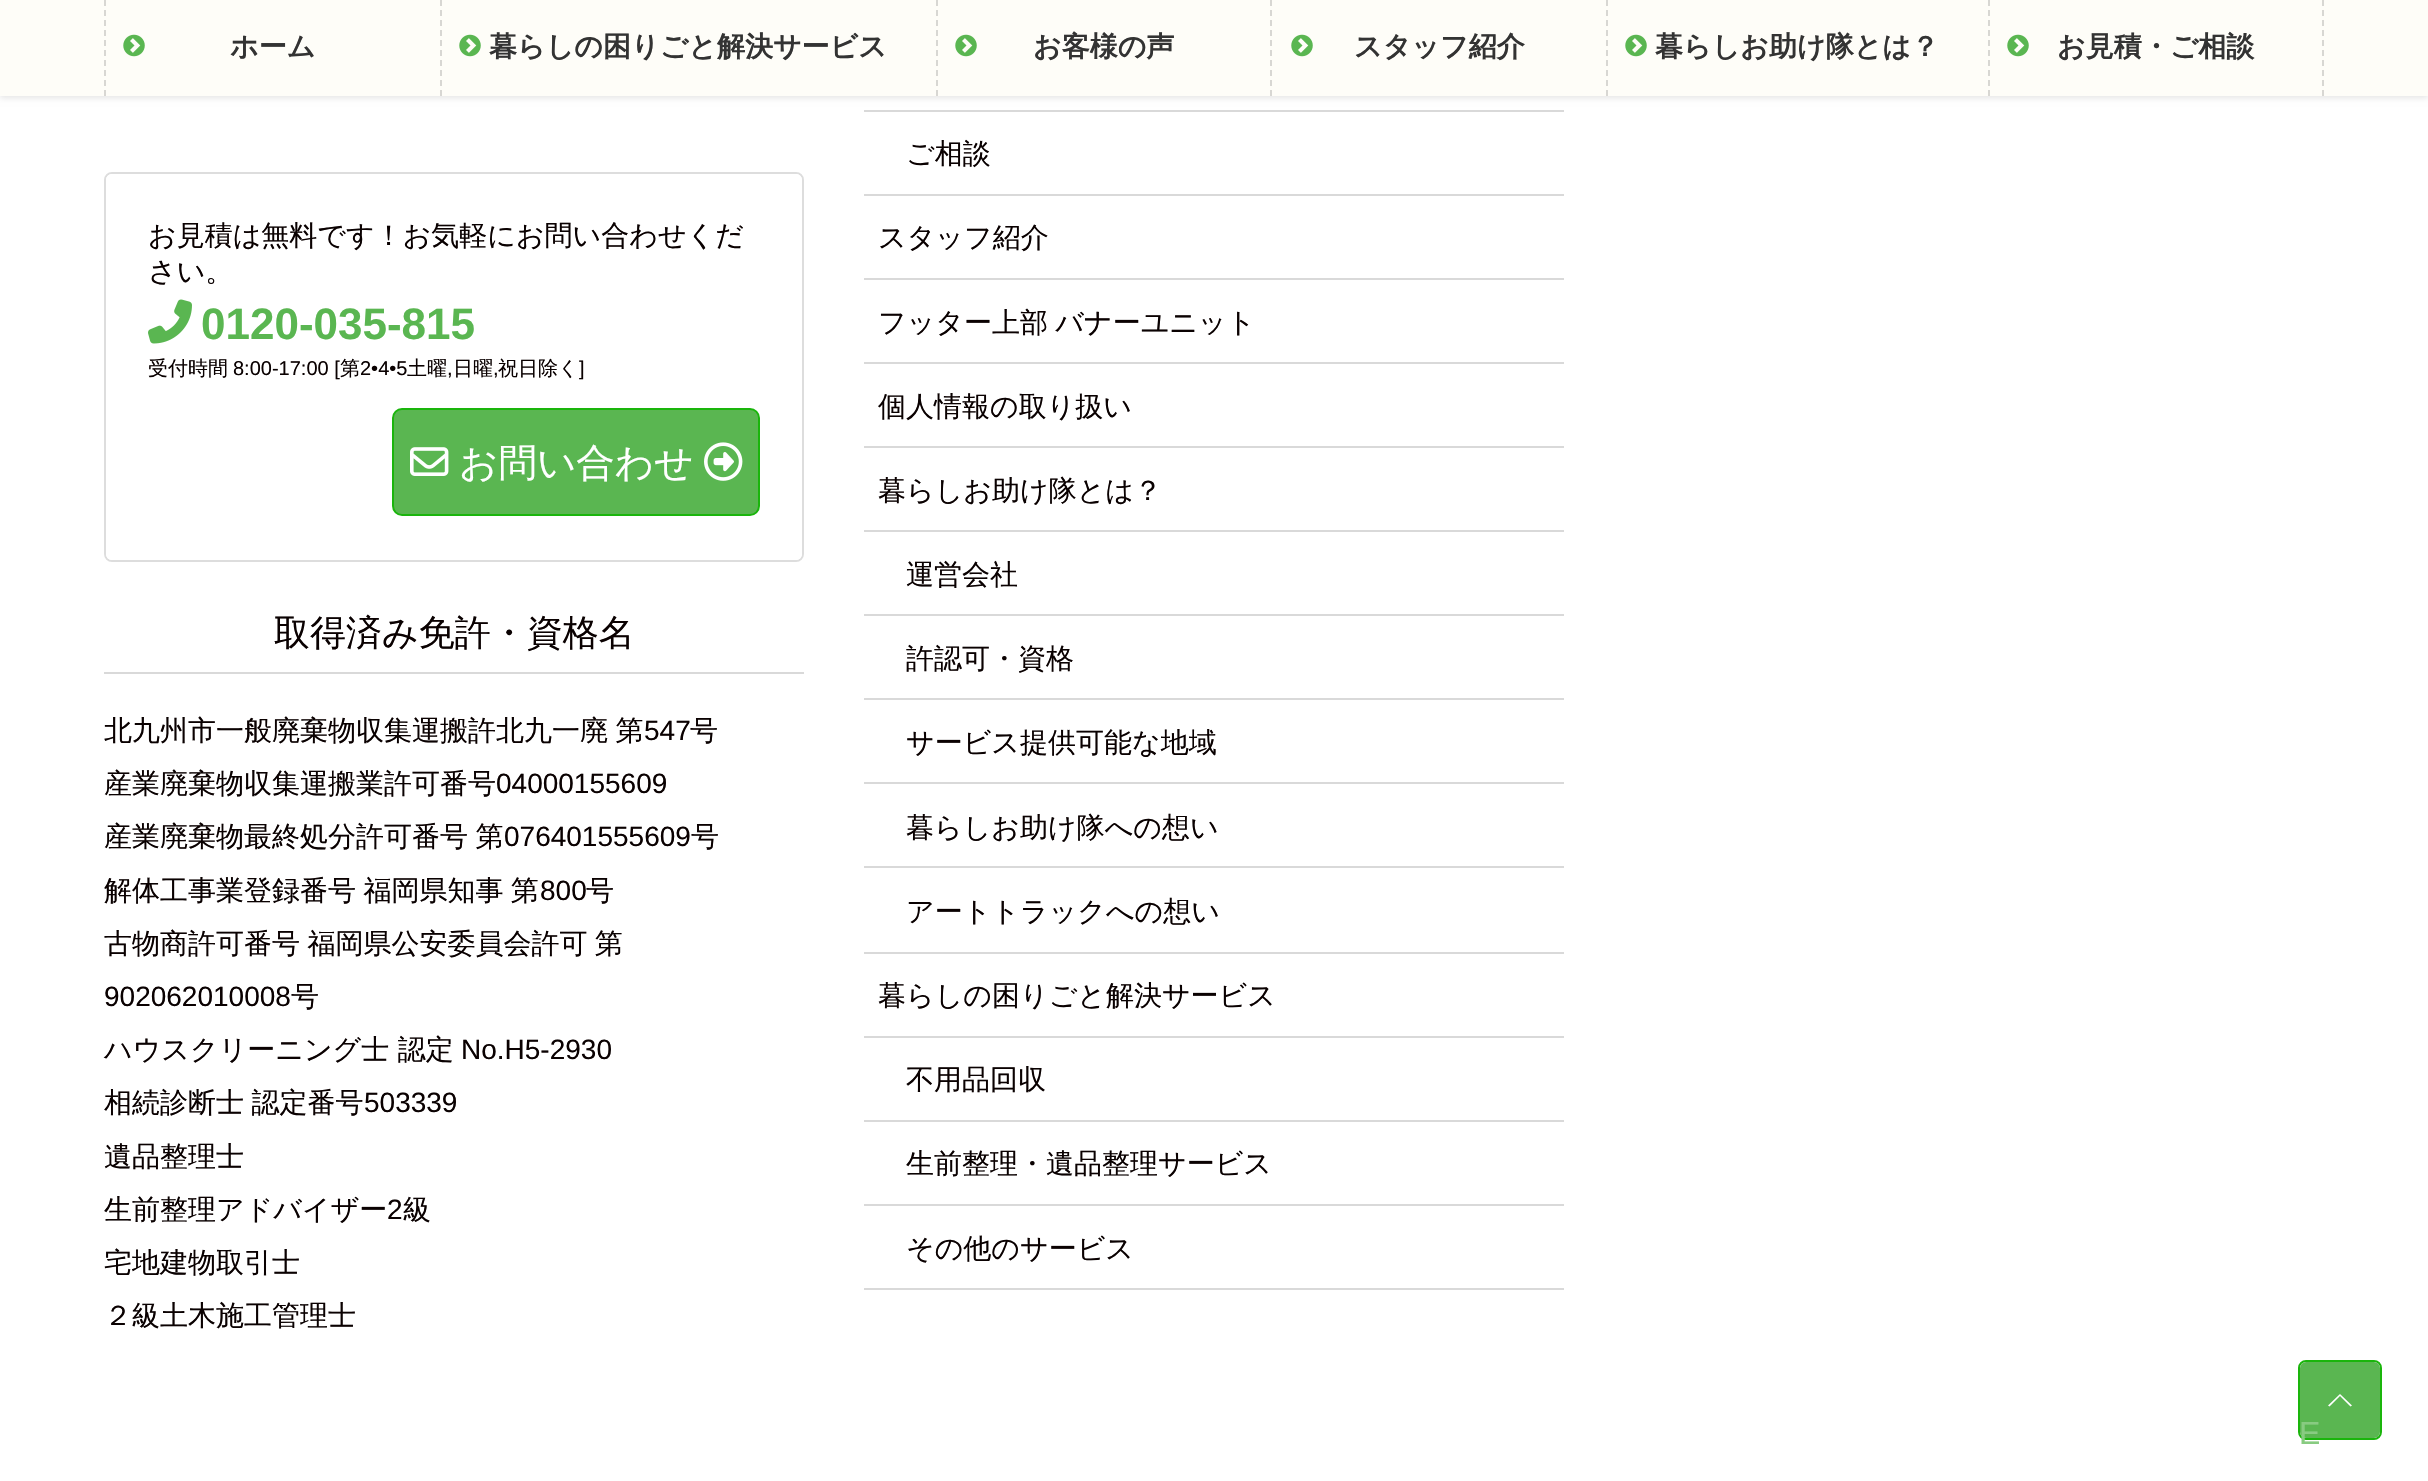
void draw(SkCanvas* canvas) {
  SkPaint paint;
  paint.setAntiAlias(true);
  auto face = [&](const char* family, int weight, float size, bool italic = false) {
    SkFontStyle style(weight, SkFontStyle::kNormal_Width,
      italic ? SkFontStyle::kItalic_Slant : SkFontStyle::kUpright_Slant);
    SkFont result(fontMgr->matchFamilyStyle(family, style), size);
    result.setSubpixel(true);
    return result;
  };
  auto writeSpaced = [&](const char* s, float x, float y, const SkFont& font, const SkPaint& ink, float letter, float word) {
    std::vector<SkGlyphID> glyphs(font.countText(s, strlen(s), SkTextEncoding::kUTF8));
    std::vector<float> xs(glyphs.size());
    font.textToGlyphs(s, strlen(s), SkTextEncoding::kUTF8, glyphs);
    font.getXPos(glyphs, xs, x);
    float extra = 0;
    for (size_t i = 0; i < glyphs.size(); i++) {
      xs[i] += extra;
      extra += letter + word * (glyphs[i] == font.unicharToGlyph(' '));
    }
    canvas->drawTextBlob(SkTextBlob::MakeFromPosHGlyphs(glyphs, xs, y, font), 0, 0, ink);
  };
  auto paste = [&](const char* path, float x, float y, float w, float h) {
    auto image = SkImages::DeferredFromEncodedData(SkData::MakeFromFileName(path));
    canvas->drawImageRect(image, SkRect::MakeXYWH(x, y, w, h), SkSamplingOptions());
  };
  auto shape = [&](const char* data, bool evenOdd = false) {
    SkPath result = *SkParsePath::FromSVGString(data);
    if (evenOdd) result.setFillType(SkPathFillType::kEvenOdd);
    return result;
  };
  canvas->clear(0xffffffff);
  paint.setColor(0x1a000000);
  paint.setMaskFilter(SkMaskFilter::MakeBlur(kNormal_SkBlurStyle, 3));
  canvas->drawRect(SkRect::MakeXYWH(0, 2, 2428, 96), paint);
  paint.setMaskFilter(nullptr);
  paint.setColor(0xfffefdf8);
  canvas->drawRect(SkRect::MakeXYWH(0, 0, 2428, 96), paint);
  paint.setStroke(true);
  paint.setStrokeWidth(2);
  paint.setColor(0xffd8d7d3);
  paint.setPathEffect(SkDashPathEffect::Make({{6, 4}}, 0));
  canvas->drawPath(shape("M105 0V96"), paint);
  paint.setPathEffect(nullptr);
  paste("img/1.png", 123, 34, 22, 23);
  paint.setPathEffect(SkDashPathEffect::Make({{6, 4}}, 0));
  canvas->drawPath(shape("M441 0V96"), paint);
  paint.setPathEffect(nullptr);
  paste("img/1.png", 459, 34, 22, 23);
  paint.setPathEffect(SkDashPathEffect::Make({{6, 4}}, 0));
  canvas->drawPath(shape("M937 0V96"), paint);
  paint.setPathEffect(nullptr);
  paste("img/1.png", 955, 34, 22, 23);
  paint.setPathEffect(SkDashPathEffect::Make({{6, 4}}, 0));
  canvas->drawPath(shape("M1271 0V96"), paint);
  paint.setPathEffect(nullptr);
  paste("img/1.png", 1291, 34, 22, 23);
  paint.setPathEffect(SkDashPathEffect::Make({{6, 4}}, 0));
  canvas->drawPath(shape("M1607 0V96"), paint);
  paint.setPathEffect(nullptr);
  paste("img/1.png", 1625, 34, 22, 23);
  paint.setPathEffect(SkDashPathEffect::Make({{6, 4}}, 0));
  canvas->drawPath(shape("M2323 0V96"), paint);
  paint.setPathEffect(nullptr);
  paint.setPathEffect(SkDashPathEffect::Make({{6, 4}}, 0));
  canvas->drawPath(shape("M1989 0V96"), paint);
  paint.setPathEffect(nullptr);
  paste("img/1.png", 2007, 34, 22, 23);
  paint.setColor(0xffdddddd);
  canvas->drawRoundRect(SkRect::MakeXYWH(105, 173, 698, 388), 7, 7, paint);
  paint.setStroke(false);
  paint.setColor(0xd9ffffff);
  canvas->drawRoundRect(SkRect::MakeXYWH(106, 174, 696, 386), 6, 6, paint);
  paint.setColor(0xccffffff);
  canvas->drawPath(shape("M112 174C109 174 106 177 106 180V554C106 557 109 560 112 560H796C799 560 802 557 802 554V180C802 177 799 174 796 174ZM108 176V558H800V176Z", true), paint);
  paste("img/2.png", 148, 299, 44, 45);
  paint.setColor(0xff5ab651);
  canvas->drawRoundRect(SkRect::MakeXYWH(393, 409, 366, 106), 9, 9, paint);
  paint.setStroke(true);
  paint.setColor(0xff1ab50c);
  canvas->drawRoundRect(SkRect::MakeXYWH(393, 409, 366, 106), 9, 9, paint);
  paste("img/3.png", 410, 447, 39, 29);
  paste("img/4.png", 704, 442, 39, 39);
  paint.setStroke(false);
  {
    const struct { float x, y, w, h; SkColor color; } items[] = {
      {104, 672, 700, 2, 0xffd9d9d9},
      {864, 110, 700, 2, 0xffd9d9d9},
      {864, 194, 700, 2, 0xffd9d9d9},
      {864, 278, 700, 2, 0xffd9d9d9},
      {864, 362, 700, 2, 0xffd9d9d9},
      {864, 446, 700, 2, 0xffd9d9d9},
      {864, 530, 700, 2, 0xffd9d9d9},
      {864, 614, 700, 2, 0xffd9d9d9},
      {864, 698, 700, 2, 0xffd9d9d9},
      {864, 782, 700, 2, 0xffd9d9d9},
      {864, 866, 700, 2, 0xffd9d9d9},
      {864, 952, 700, 2, 0xffd9d9d9},
      {864, 1036, 700, 2, 0xffd9d9d9},
      {864, 1120, 700, 2, 0xffd9d9d9},
      {864, 1204, 700, 2, 0xffd9d9d9},
      {864, 1288, 700, 2, 0xffd9d9d9},
    };
    for (auto [x, y, w, h, color] : items) {
      paint.setColor(color);
      canvas->drawRect(SkRect::MakeXYWH(x, y, w, h), paint);
    }
  }
  paint.setStroke(true);
  paint.setColor(0xff1ab50c);
  canvas->drawRoundRect(SkRect::MakeXYWH(2299, 1361, 82, 78), 7, 7, paint);
  paint.setStroke(false);
  paint.setColor(0xff5ab651);
  canvas->drawRoundRect(SkRect::MakeXYWH(2300, 1362, 80, 76), 6, 6, paint);
  paint.setColor(0xffffffff);
  canvas->drawPath(shape("M2352 1405.5L2350.5 1406.5L2340 1396L2329.5 1406.5L2328 1405.5L2340 1394Z"), paint);
  auto f0 = face("WenQuanYi Zen Hei", 700, 28);
  paint.setColor(0xff333333);
  {
    const struct { const char* s; float x, y; } items[] = {
      {"ホーム", 230, 56},
      {"暮らしの困りごと解決サービス", 489, 56},
      {"お客様の声", 1033, 56},
      {"スタッフ紹介", 1354, 56},
      {"暮らしお助け隊とは？", 1655, 56},
      {"お見積・ご相談", 2057, 56},
    };
    for (auto [s, x, y] : items) {
      canvas->drawString(s, x, y, f0, paint);
    }
  }
  auto f1 = face("WenQuanYi Zen Hei", 500, 28);
  paint.setColor(0xff0a0101);
  canvas->drawString("お見積は無料です！お気軽にお問い合わせくだ", 148, 245, f1, paint);
  canvas->drawString("さい。", 148, 281, f1, paint);
  auto f2 = face("Liberation Sans", 700, 44);
  paint.setColor(0xff5ab651);
  canvas->drawString("0120-035-815", 201, 339, f2, paint);
  auto f3 = face("WenQuanYi Zen Hei", 500, 20);
  paint.setColor(0xff0a0101);
  canvas->drawString("受付時間", 148, 375, f3, paint);
  auto f4 = face("Liberation Sans", 400, 20);
  canvas->drawString("8:00-17:00 [", 233, 375, f4, paint);
  canvas->drawString("第", 340, 375, f3, paint);
  canvas->drawString("2•4•5", 360, 375, f4, paint);
  canvas->drawString("土曜", 407, 375, f3, paint);
  canvas->drawString(",", 447, 375, f4, paint);
  canvas->drawString("日曜", 453, 375, f3, paint);
  canvas->drawString(",", 493, 375, f4, paint);
  canvas->drawString("祝日除く", 498, 375, f3, paint);
  canvas->drawString("]", 579, 375, f4, paint);
  auto f5 = face("WenQuanYi Zen Hei", 500, 38.5f);
  paint.setColor(0xffffffff);
  canvas->drawString("お問い合わせ", 459, 476, f5, paint);
  auto f6 = face("WenQuanYi Zen Hei", 500, 36);
  paint.setColor(0xff0a0101);
  canvas->drawString("取得済み免許・資格名", 274, 645, f6, paint);
  writeSpaced("北九州市一般廃棄物収集運搬許北九一廃 第", 104, 740, f1, paint, 0, -1);
  auto f7 = face("Liberation Sans", 400, 28);
  canvas->drawString("547", 644, 740, f7, paint);
  canvas->drawString("号", 690, 740, f1, paint);
  canvas->drawString("産業廃棄物収集運搬業許可番号", 104, 793, f1, paint);
  canvas->drawString("04000155609", 496, 793, f7, paint);
  writeSpaced("産業廃棄物最終処分許可番号 第", 104, 846, f1, paint, 0, -1);
  canvas->drawString("076401555609", 504, 846, f7, paint);
  canvas->drawString("号", 691, 846, f1, paint);
  writeSpaced("解体工事業登録番号 福岡県知事 第", 104, 900, f1, paint, 0, -1);
  canvas->drawString("800", 540, 900, f7, paint);
  canvas->drawString("号", 586, 900, f1, paint);
  writeSpaced("古物商許可番号 福岡県公安委員会許可 第", 104, 953, f1, paint, 0, -1);
  canvas->drawString("902062010008", 104, 1006, f7, paint);
  canvas->drawString("号", 291, 1006, f1, paint);
  canvas->drawString("ハウスクリーニング士 認定", 104, 1059, f1, paint);
  canvas->drawString("No.H5-2930", 461, 1059, f7, paint);
  writeSpaced("相続診断士 認定番号", 104, 1112, f1, paint, 0, -1);
  canvas->drawString("503339", 364, 1112, f7, paint);
  canvas->drawString("遺品整理士", 104, 1166, f1, paint);
  canvas->drawString("生前整理アドバイザー", 104, 1219, f1, paint);
  canvas->drawString("2", 387, 1219, f7, paint);
  {
    const struct { const char* s; float x, y; } items[] = {
      {"級", 403, 1219},
      {"宅地建物取引士", 104, 1272},
      {"２級土木施工管理士", 104, 1325},
      {"ご相談", 906, 163},
      {"スタッフ紹介", 878, 247},
    };
    for (auto [s, x, y] : items) {
      canvas->drawString(s, x, y, f1, paint);
    }
  }
  writeSpaced("フッター上部 バナーユニット", 878, 332, f1, paint, 0, -1);
  {
    const struct { const char* s; float x, y; } items[] = {
      {"個人情報の取り扱い", 878, 416},
      {"暮らしお助け隊とは？", 878, 500},
      {"運営会社", 906, 584},
      {"許認可・資格", 906, 668},
      {"サービス提供可能な地域", 906, 752},
      {"暮らしお助け隊への想い", 906, 837},
      {"アートトラックへの想い", 906, 921},
      {"暮らしの困りごと解決サービス", 878, 1005},
      {"不用品回収", 906, 1089},
      {"生前整理・遺品整理サービス", 906, 1173},
      {"その他のサービス", 906, 1258},
    };
    for (auto [s, x, y] : items) {
      canvas->drawString(s, x, y, f1, paint);
    }
  }
  auto f8 = face("Liberation Sans", 400, 32);
  paint.setColor(0xff88cb81);
  canvas->drawString("E", 2299, 1444, f8, paint);
}
